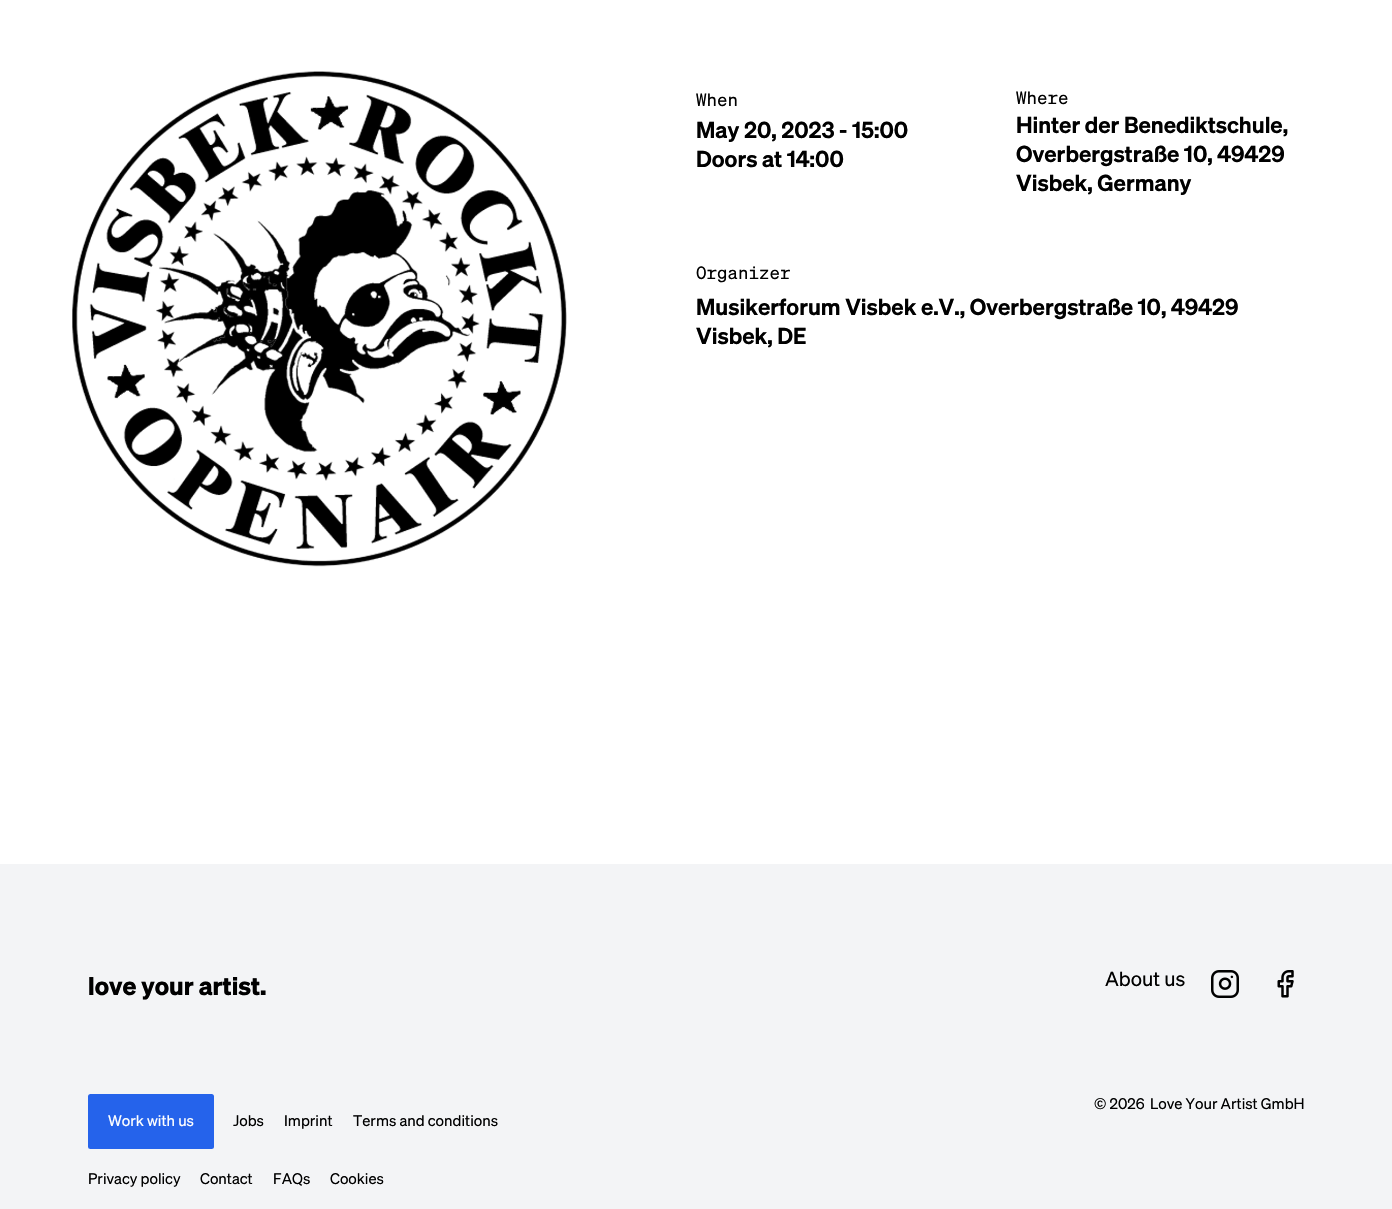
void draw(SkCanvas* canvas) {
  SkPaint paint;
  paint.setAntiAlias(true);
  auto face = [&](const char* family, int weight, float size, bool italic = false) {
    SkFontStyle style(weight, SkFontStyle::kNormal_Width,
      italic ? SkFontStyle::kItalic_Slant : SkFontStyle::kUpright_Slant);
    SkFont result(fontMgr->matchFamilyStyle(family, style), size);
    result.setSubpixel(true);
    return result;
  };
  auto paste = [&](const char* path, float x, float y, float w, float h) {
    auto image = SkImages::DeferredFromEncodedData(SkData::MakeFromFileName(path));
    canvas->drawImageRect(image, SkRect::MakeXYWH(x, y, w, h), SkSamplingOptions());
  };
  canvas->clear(0xffffffff);
  paste("img/1.png", 72, 71, 495, 496);
  paint.setColor(0xfff3f4f6);
  canvas->drawRect(SkRect::MakeXYWH(0, 864, 1392, 345), paint);
  paste("img/2.png", 1211, 970, 28, 28);
  paste("img/3.png", 1277, 970, 17, 28);
  paint.setColor(0xff2563eb);
  canvas->drawRoundRect(SkRect::MakeXYWH(88, 1094, 126, 55), 2.5f, 2.5f, paint);
  auto f0 = face("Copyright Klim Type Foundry", 400, 17.5f);
  paint.setColor(0xff000000);
  canvas->drawString("When", 696, 106, f0, paint);
  auto f1 = face("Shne", 600, 22.5f);
  canvas->drawString("May 20, 2023 - 15:00", 696, 138, f1, paint);
  canvas->drawString("Doors at 14:00", 696, 167, f1, paint);
  canvas->drawString("Where", 1016, 104, f0, paint);
  {
    const struct { const char* s; float x, y; } items[] = {
      {"Hinter der Benediktschule,", 1016, 133},
      {"Overbergstraße 10, 49429", 1016, 162},
      {"Visbek, Germany", 1016, 191},
    };
    for (auto [s, x, y] : items) {
      canvas->drawString(s, x, y, f1, paint);
    }
  }
  canvas->drawString("Organizer", 696, 279, f0, paint);
  canvas->drawString("Musikerforum Visbek e.V., Overbergstraße 10, 49429", 696, 315, f1, paint);
  canvas->drawString("Visbek, DE", 696, 344, f1, paint);
  auto f2 = face("Copyright Klim Type Foundry", 700, 25);
  canvas->drawString("love your artist.", 88, 995, f2, paint);
  auto f3 = face("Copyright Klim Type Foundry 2", 400, 20);
  canvas->drawString("About us", 1105, 986, f3, paint);
  auto f4 = face("Copyright Klim Type Foundry 2", 400, 15);
  canvas->drawString("© 2026", 1094, 1109, f4, paint);
  canvas->drawString("Love Your Artist GmbH", 1150, 1109, f4, paint);
  paint.setColor(0xffffffff);
  canvas->drawString("Work with us", 108, 1126, f4, paint);
  paint.setColor(0xff000000);
  {
    const struct { const char* s; float x, y; } items[] = {
      {"Jobs", 233, 1126},
      {"Imprint", 284, 1126},
      {"Terms and conditions", 353, 1126},
      {"Privacy policy", 88, 1184},
      {"Contact", 200, 1184},
      {"FAQs", 273, 1184},
      {"Cookies", 330, 1184},
    };
    for (auto [s, x, y] : items) {
      canvas->drawString(s, x, y, f4, paint);
    }
  }
}
